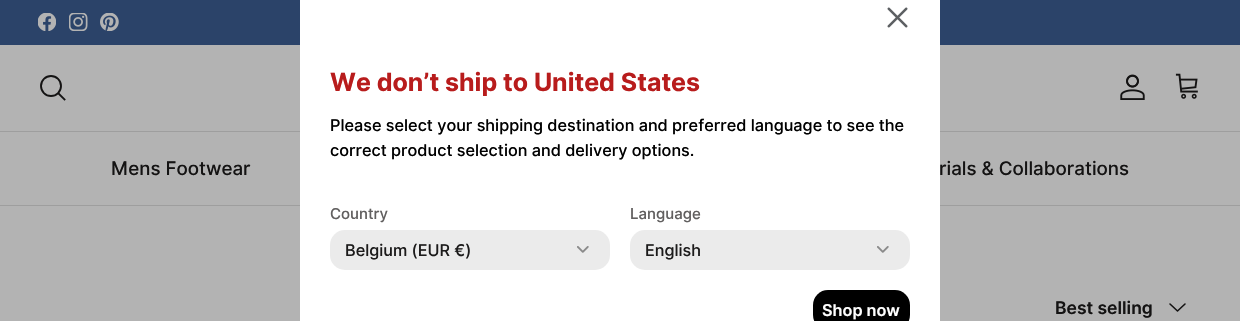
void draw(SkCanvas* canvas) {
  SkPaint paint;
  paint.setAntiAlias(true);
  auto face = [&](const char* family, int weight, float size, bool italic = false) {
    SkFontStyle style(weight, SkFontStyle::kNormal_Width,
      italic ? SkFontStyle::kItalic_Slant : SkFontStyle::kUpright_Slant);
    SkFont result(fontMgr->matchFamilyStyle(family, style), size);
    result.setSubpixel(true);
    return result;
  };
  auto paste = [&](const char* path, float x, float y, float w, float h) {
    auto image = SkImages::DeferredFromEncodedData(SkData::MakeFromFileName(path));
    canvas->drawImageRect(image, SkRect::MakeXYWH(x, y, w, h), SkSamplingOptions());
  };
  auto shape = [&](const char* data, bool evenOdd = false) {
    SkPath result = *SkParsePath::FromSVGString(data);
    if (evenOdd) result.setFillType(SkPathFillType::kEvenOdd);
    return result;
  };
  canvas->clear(0xffb3b3b3);
  paint.setColor(0xff2b4369);
  canvas->drawRect(SkRect::MakeXYWH(0, 0, 1240, 45), paint);
  paste("img/1.png", 38, 13, 18, 18);
  paste("img/2.png", 69, 13, 19, 18);
  paste("img/3.png", 100, 13, 19, 18);
  {
    const struct { float x, y, w, h; SkColor color; } items[] = {
      {0, 131, 1240, 1, 0xff9e9e9e},
      {0, 205, 1240, 1, 0xff9e9e9e},
      {300, 0, 640, 321, 0xffffffff},
    };
    for (auto [x, y, w, h, color] : items) {
      paint.setColor(color);
      canvas->drawRect(SkRect::MakeXYWH(x, y, w, h), paint);
    }
  }
  paste("img/4.png", 887, 7, 21, 21);
  paint.setColor(0xffebebeb);
  canvas->drawRoundRect(SkRect::MakeXYWH(330, 230, 280, 40), 15, 15, paint);
  paste("img/5.png", 577, 246, 12, 7);
  canvas->drawRoundRect(SkRect::MakeXYWH(630, 230, 280, 40), 15, 15, paint);
  paste("img/5.png", 877, 246, 12, 7);
  paint.setColor(0xff000000);
  canvas->drawRoundRect(SkRect::MakeXYWH(813, 290, 97, 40), 15, 15, paint);
  paint.setStroke(true);
  paint.setStrokeWidth(1.9f);
  paint.setColor(0xff141313);
  canvas->drawCircle(51, 86, 10, paint);
  paint.setStrokeCap(SkPaint::kSquare_Cap);
  canvas->drawPath(shape("M58.5 93.5L64.5 99.5"), paint);
  paste("img/6.png", 1120, 74, 25, 26);
  paste("img/7.png", 1175, 73, 23, 26);
  paint.setStrokeWidth(1.6f);
  paint.setStrokeCap(SkPaint::kRound_Cap);
  paint.setStrokeJoin(SkPaint::kRound_Join);
  canvas->drawPath(shape("M1170 304L1177.5 311L1185 304"), paint);
  auto f0 = face("Inter", 700, 25);
  paint.setStroke(false);
  paint.setColor(0xffb81c1c);
  canvas->drawString("We don’t ship to United States", 330, 91, f0, paint);
  auto f1 = face("Inter", 500, 16.25f);
  paint.setColor(0xff000000);
  canvas->drawString("Please select your shipping destination and preferred language to see the", 330, 131, f1, paint);
  canvas->drawString("correct product selection and delivery options.", 330, 156, f1, paint);
  auto f2 = face("Inter", 500, 15);
  paint.setColor(0xff615f5f);
  canvas->drawString("Country", 330, 219, f2, paint);
  paint.setColor(0xff1c1b1b);
  canvas->drawString("Belgium (EUR €)", 345, 256, f1, paint);
  paint.setColor(0xff615f5f);
  canvas->drawString("Language", 630, 219, f2, paint);
  paint.setColor(0xff1c1b1b);
  canvas->drawString("English", 645, 256, f1, paint);
  auto f3 = face("Inter", 600, 16.25f);
  paint.setColor(0xffffffff);
  canvas->drawString("Shop now", 822, 316, f3, paint);
  auto f4 = face("Inter", 500, 18.75f);
  paint.setColor(0xff141313);
  canvas->drawString("Mens Footwear", 111, 175, f4, paint);
  canvas->drawString("rials & Collaborations", 939, 175, f4, paint);
  auto f5 = face("Inter", 600, 17.5f);
  canvas->drawString("Best selling", 1055, 314, f5, paint);
}
